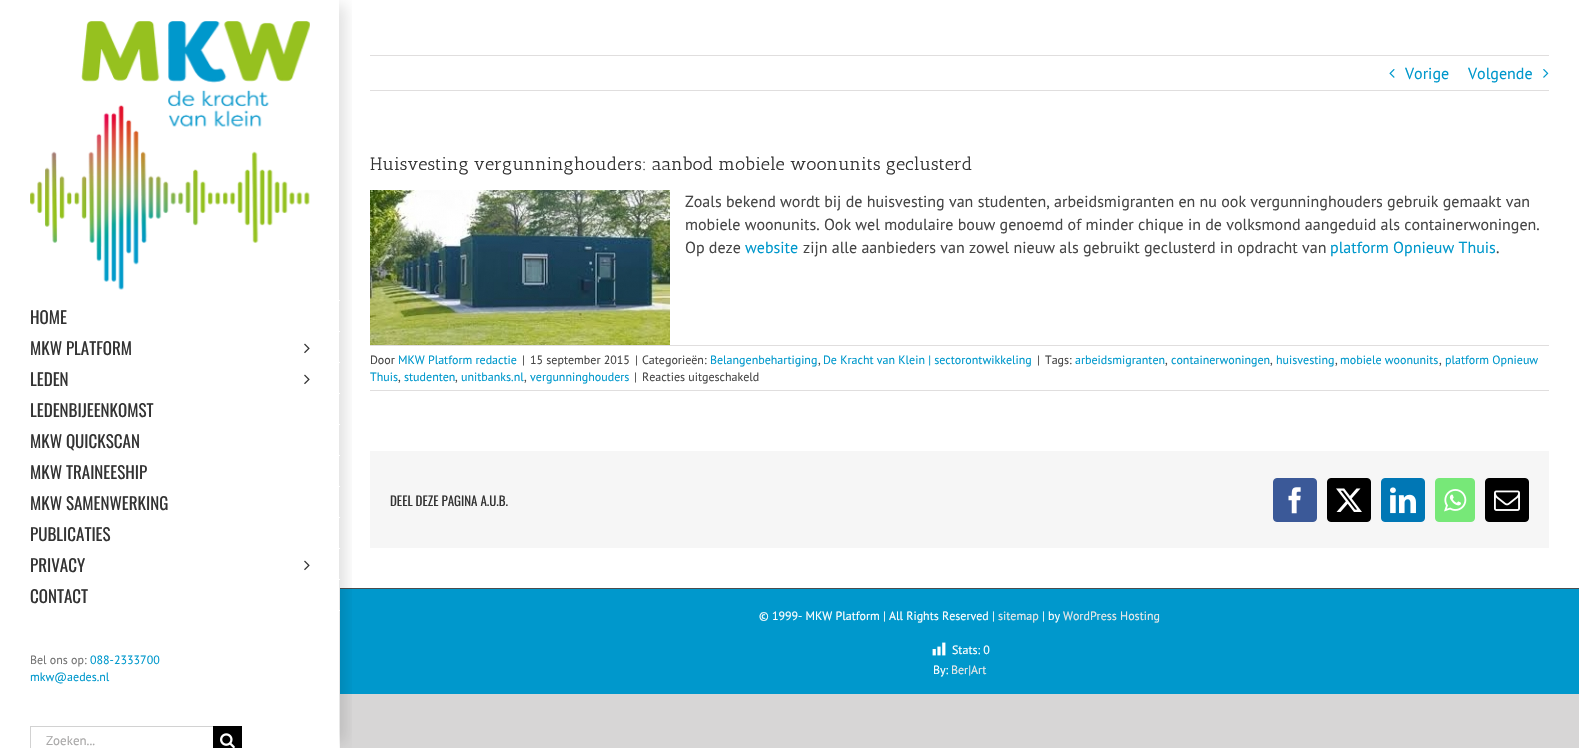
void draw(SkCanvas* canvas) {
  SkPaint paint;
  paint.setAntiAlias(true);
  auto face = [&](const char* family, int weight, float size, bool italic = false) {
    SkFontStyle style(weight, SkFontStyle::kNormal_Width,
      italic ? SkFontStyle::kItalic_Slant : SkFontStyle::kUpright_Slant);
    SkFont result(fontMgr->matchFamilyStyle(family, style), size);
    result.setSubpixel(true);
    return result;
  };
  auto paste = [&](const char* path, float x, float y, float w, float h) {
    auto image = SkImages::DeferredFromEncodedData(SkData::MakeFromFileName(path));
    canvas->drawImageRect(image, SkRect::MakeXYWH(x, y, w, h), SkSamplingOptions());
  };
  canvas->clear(0xffd7d6d6);
  paint.setColor(0xffffffff);
  canvas->drawRect(SkRect::MakeXYWH(340, 0, 1239, 588), paint);
  canvas->drawRect(SkRect::MakeXYWH(0, 0, 340, 748), paint);
  paste("img/1.png", 30, 21, 280, 269);
  paint.setColor(0xff0098cc);
  canvas->drawRect(SkRect::MakeXYWH(340, 589, 1239, 105), paint);
  paint.setColor(0xff4b4c4d);
  canvas->drawRect(SkRect::MakeXYWH(340, 588, 1239, 1), paint);
  canvas->save();
  canvas->clipRect(SkRect::MakeXYWH(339, 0, 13, 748));
  paint.setColor(0x24000000);
  paint.setMaskFilter(SkMaskFilter::MakeBlur(kNormal_SkBlurStyle, 7.5f));
  canvas->drawRect(SkRect::MakeXYWH(329, 5, 15, 738), paint);
  paint.setMaskFilter(nullptr);
  canvas->restore();
  {
    const struct { float x, y, w, h; SkColor color; } items[] = {
      {339, 300, 1, 1, 0xffffffff},
      {339, 331, 1, 1, 0xffffffff},
      {339, 362, 1, 1, 0xffffffff},
    };
    for (auto [x, y, w, h, color] : items) {
      paint.setColor(color);
      canvas->drawRect(SkRect::MakeXYWH(x, y, w, h), paint);
    }
  }
  paste("img/2.png", 304, 343, 6, 11);
  canvas->drawRect(SkRect::MakeXYWH(339, 393, 1, 1), paint);
  paste("img/2.png", 304, 374, 6, 11);
  {
    const struct { float x, y, w, h; SkColor color; } items[] = {
      {339, 424, 1, 1, 0xffffffff},
      {339, 455, 1, 1, 0xffffffff},
      {339, 486, 1, 1, 0xffffffff},
      {339, 517, 1, 1, 0xffffffff},
      {339, 548, 1, 1, 0xffffffff},
      {339, 579, 1, 1, 0xffffffff},
    };
    for (auto [x, y, w, h, color] : items) {
      paint.setColor(color);
      canvas->drawRect(SkRect::MakeXYWH(x, y, w, h), paint);
    }
  }
  paste("img/2.png", 304, 560, 6, 11);
  {
    const struct { float x, y, w, h; SkColor color; } items[] = {
      {339, 610, 1, 1, 0xffffffff},
      {30, 726, 183, 1, 0xffd2d2d2},
      {30, 726, 1, 22, 0xffd2d2d2},
      {213, 726, 29, 22, 0xff000000},
    };
    for (auto [x, y, w, h, color] : items) {
      paint.setColor(color);
      canvas->drawRect(SkRect::MakeXYWH(x, y, w, h), paint);
    }
  }
  paste("img/3.png", 220, 733, 15, 15);
  paint.setColor(0xffe0dede);
  canvas->drawRect(SkRect::MakeXYWH(370, 55, 1179, 1), paint);
  canvas->drawRect(SkRect::MakeXYWH(370, 90, 1179, 1), paint);
  paste("img/4.png", 1389, 69, 6, 9);
  paste("img/5.png", 1543, 69, 6, 9);
  paste("img/6.png", 370, 190, 300, 155);
  {
    const struct { float x, y, w, h; SkColor color; } items[] = {
      {370, 345, 1179, 1, 0xffe0dede},
      {370, 390, 1179, 1, 0xffe0dede},
      {370, 451, 1179, 97, 0xfff6f6f6},
    };
    for (auto [x, y, w, h, color] : items) {
      paint.setColor(color);
      canvas->drawRect(SkRect::MakeXYWH(x, y, w, h), paint);
    }
  }
  paint.setColor(0xff3b5998);
  canvas->drawRoundRect(SkRect::MakeXYWH(1273.5f, 478.5f, 43, 43), 3.5f, 3.5f, paint);
  paint.setStroke(true);
  paint.setStrokeWidth(1);
  canvas->drawRoundRect(SkRect::MakeXYWH(1273.5f, 478.5f, 43, 43), 3.5f, 3.5f, paint);
  paste("img/7.png", 1288, 487, 13, 27);
  paint.setStroke(false);
  paint.setColor(0xff000000);
  canvas->drawRoundRect(SkRect::MakeXYWH(1327.5f, 478.5f, 43, 43), 3.5f, 3.5f, paint);
  paint.setStroke(true);
  canvas->drawRoundRect(SkRect::MakeXYWH(1327.5f, 478.5f, 43, 43), 3.5f, 3.5f, paint);
  paste("img/8.png", 1336, 488, 26, 24);
  paint.setStroke(false);
  paint.setColor(0xff0077b5);
  canvas->drawRoundRect(SkRect::MakeXYWH(1381.5f, 478.5f, 43, 43), 3.5f, 3.5f, paint);
  paint.setStroke(true);
  canvas->drawRoundRect(SkRect::MakeXYWH(1381.5f, 478.5f, 43, 43), 3.5f, 3.5f, paint);
  paste("img/9.png", 1390, 487, 26, 27);
  paint.setStroke(false);
  paint.setColor(0xff77e878);
  canvas->drawRoundRect(SkRect::MakeXYWH(1435.5f, 478.5f, 39, 43), 3.5f, 3.5f, paint);
  paint.setStroke(true);
  canvas->drawRoundRect(SkRect::MakeXYWH(1435.5f, 478.5f, 39, 43), 3.5f, 3.5f, paint);
  paste("img/10.png", 1444, 489, 23, 23);
  paint.setStroke(false);
  paint.setColor(0xff000000);
  canvas->drawRoundRect(SkRect::MakeXYWH(1485.5f, 478.5f, 43, 43), 3.5f, 3.5f, paint);
  paint.setStroke(true);
  canvas->drawRoundRect(SkRect::MakeXYWH(1485.5f, 478.5f, 43, 43), 3.5f, 3.5f, paint);
  paste("img/11.png", 1494, 490, 26, 21);
  paste("img/12.png", 932, 642, 14, 14);
  auto f0 = face("Oswald", 400, 17);
  paint.setStroke(false);
  paint.setColor(0xff333333);
  {
    const struct { const char* s; float x, y; } items[] = {
      {"HOME", 30, 324},
      {"MKW PLATFORM", 30, 355},
      {"LEDEN", 30, 386},
      {"LEDENBIJEENKOMST", 30, 417},
      {"MKW QUICKSCAN", 30, 448},
      {"MKW TRAINEESHIP", 30, 479},
      {"MKW SAMENWERKING", 30, 510},
      {"PUBLICATIES", 30, 541},
      {"PRIVACY", 30, 572},
      {"CONTACT", 30, 603},
    };
    for (auto [s, x, y] : items) {
      canvas->drawString(s, x, y, f0, paint);
    }
  }
  auto f1 = face("PT Sans", 400, 12);
  paint.setColor(0xff747474);
  canvas->drawString("Bel ons op:", 30, 664, f1, paint);
  paint.setColor(0xff0098cc);
  canvas->drawString("088-2333700", 90, 664, f1, paint);
  canvas->drawString("mkw@aedes.nl", 30, 681, f1, paint);
  auto f2 = face("PT Sans", 400, 13);
  paint.setColor(0xffaaa9a9);
  canvas->drawString("Zoeken...", 46, 745, f2, paint);
  auto f3 = face("PT Sans", 400, 16);
  paint.setColor(0xff0098cc);
  canvas->drawString("Vorige", 1405, 79, f3, paint);
  canvas->drawString("Volgende", 1468, 79, f3, paint);
  auto f4 = face("Antic Slab", 400, 18);
  paint.setColor(0xff333333);
  canvas->drawString("Huisvesting vergunninghouders: aanbod mobiele woonunits geclusterd", 370, 170, f4, paint);
  paint.setColor(0xff474747);
  {
    const struct { const char* s; float x, y; } items[] = {
      {"Zoals bekend wordt bij de huisvesting van studenten, arbeidsmigranten en nu ook vergunninghouders gebruik gemaakt van", 685, 207},
      {"mobiele woonunits. Ook wel modulaire bouw genoemd of minder chique in de volksmond aangeduid als containerwoningen.", 685, 230},
      {"Op deze", 685, 253},
    };
    for (auto [s, x, y] : items) {
      canvas->drawString(s, x, y, f3, paint);
    }
  }
  paint.setColor(0xff0098cc);
  canvas->drawString("website", 745, 253, f3, paint);
  paint.setColor(0xff474747);
  canvas->drawString("zijn alle aanbieders van zowel nieuw als gebruikt geclusterd in opdracht van", 803, 253, f3, paint);
  paint.setColor(0xff0098cc);
  canvas->drawString("platform Opnieuw Thuis", 1330, 253, f3, paint);
  paint.setColor(0xff474747);
  canvas->drawString(".", 1496, 253, f3, paint);
  canvas->drawString("Door", 370, 364, f1, paint);
  paint.setColor(0xff0098cc);
  canvas->drawString("MKW Platform redactie", 398, 364, f1, paint);
  paint.setColor(0xff474747);
  {
    const struct { const char* s; float x, y; } items[] = {
      {"|", 522, 364},
      {"15 september 2015", 530, 364},
      {"|", 635, 364},
      {"Categorieën:", 642, 364},
    };
    for (auto [s, x, y] : items) {
      canvas->drawString(s, x, y, f1, paint);
    }
  }
  paint.setColor(0xff0098cc);
  canvas->drawString("Belangenbehartiging", 710, 364, f1, paint);
  paint.setColor(0xff474747);
  canvas->drawString(",", 818, 364, f1, paint);
  paint.setColor(0xff0098cc);
  canvas->drawString("De Kracht van Klein | sectorontwikkeling", 823, 364, f1, paint);
  paint.setColor(0xff474747);
  canvas->drawString("|", 1037, 364, f1, paint);
  canvas->drawString("Tags:", 1045, 364, f1, paint);
  paint.setColor(0xff0098cc);
  canvas->drawString("arbeidsmigranten", 1075, 364, f1, paint);
  paint.setColor(0xff474747);
  canvas->drawString(",", 1165, 364, f1, paint);
  paint.setColor(0xff0098cc);
  canvas->drawString("containerwoningen", 1171, 364, f1, paint);
  paint.setColor(0xff474747);
  canvas->drawString(",", 1270, 364, f1, paint);
  paint.setColor(0xff0098cc);
  canvas->drawString("huisvesting", 1276, 364, f1, paint);
  paint.setColor(0xff474747);
  canvas->drawString(",", 1335, 364, f1, paint);
  paint.setColor(0xff0098cc);
  canvas->drawString("mobiele woonunits", 1340, 364, f1, paint);
  paint.setColor(0xff474747);
  canvas->drawString(",", 1439, 364, f1, paint);
  paint.setColor(0xff0098cc);
  canvas->drawString("platform Opnieuw", 1445, 364, f1, paint);
  canvas->drawString("Thuis", 370, 381, f1, paint);
  paint.setColor(0xff474747);
  canvas->drawString(",", 398, 381, f1, paint);
  paint.setColor(0xff0098cc);
  canvas->drawString("studenten", 404, 381, f1, paint);
  paint.setColor(0xff474747);
  canvas->drawString(",", 455, 381, f1, paint);
  paint.setColor(0xff0098cc);
  canvas->drawString("unitbanks.nl", 461, 381, f1, paint);
  paint.setColor(0xff474747);
  canvas->drawString(",", 524, 381, f1, paint);
  paint.setColor(0xff0098cc);
  canvas->drawString("vergunninghouders", 530, 381, f1, paint);
  paint.setColor(0xff474747);
  canvas->drawString("|", 634, 381, f1, paint);
  canvas->drawString("Reacties uitgeschakeld", 642, 381, f1, paint);
  auto f5 = face("Oswald", 400, 13);
  paint.setColor(0xff333333);
  canvas->drawString("DEEL DEZE PAGINA A.U.B.", 390, 506, f5, paint);
  paint.setColor(0xffffffff);
  canvas->drawString("© 1999- MKW Platform | All Rights Reserved |", 759, 620, f1, paint);
  paint.setColor(0xffe8e8e8);
  canvas->drawString("sitemap", 998, 620, f1, paint);
  paint.setColor(0xffffffff);
  canvas->drawString("| by", 1042, 620, f1, paint);
  paint.setColor(0xffe8e8e8);
  canvas->drawString("WordPress Hosting", 1063, 620, f1, paint);
  paint.setColor(0xffffffff);
  canvas->drawString("Stats: 0", 952, 654, f1, paint);
  canvas->drawString("By:", 933, 674, f1, paint);
  paint.setColor(0xffe8e8e8);
  canvas->drawString("Ber|Art", 951, 674, f1, paint);
}
